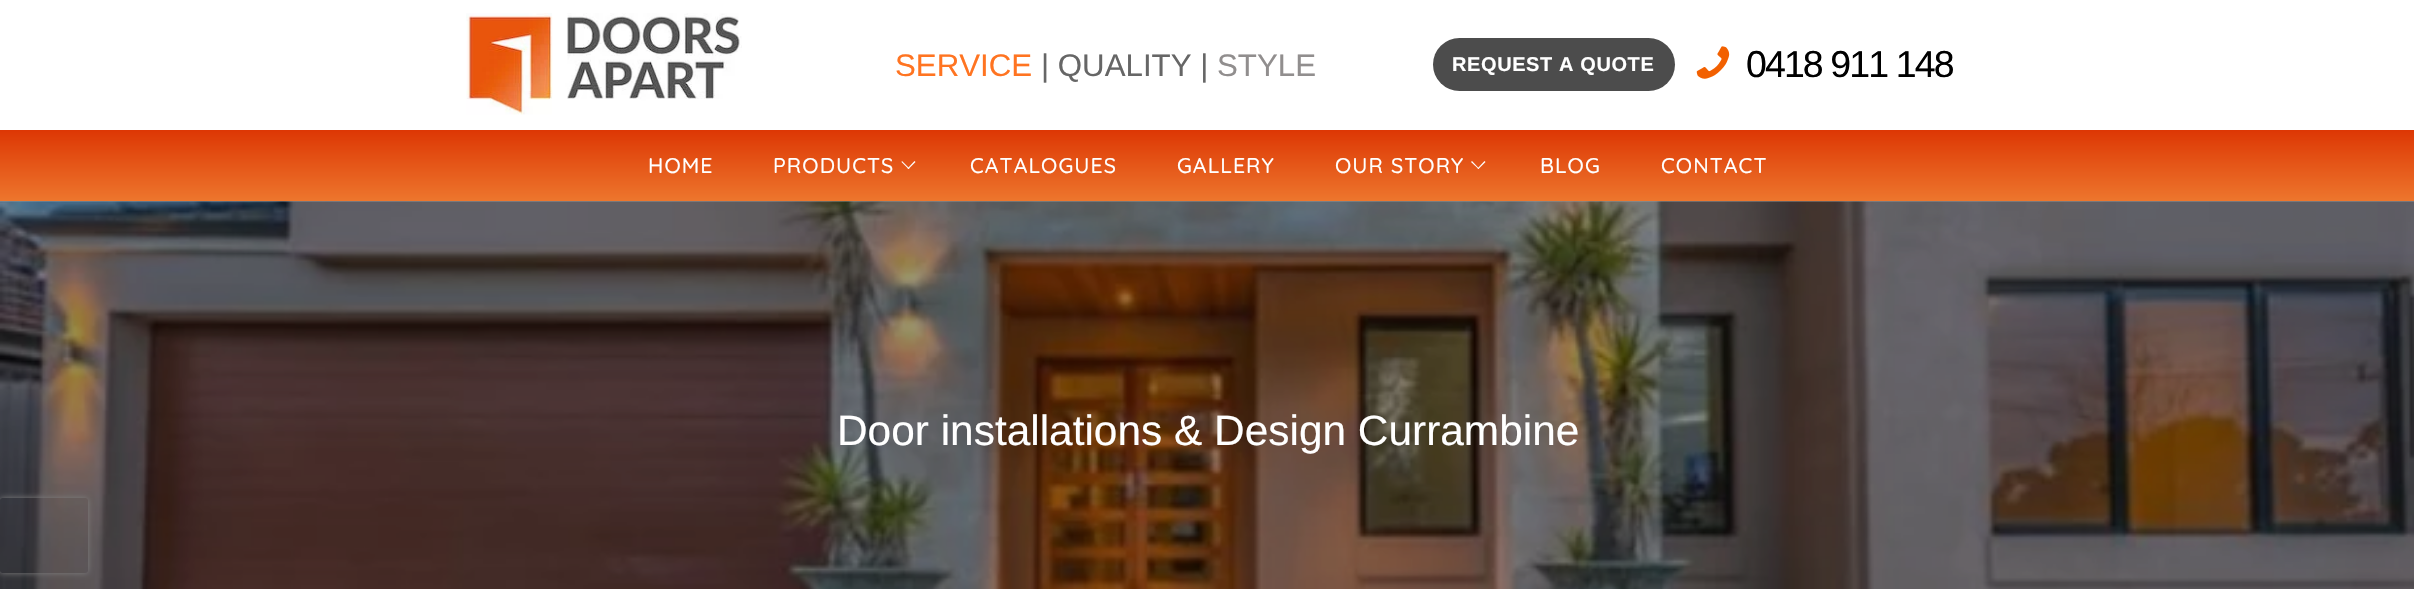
void draw(SkCanvas* canvas) {
  SkPaint paint;
  paint.setAntiAlias(true);
  auto face = [&](const char* family, int weight, float size, bool italic = false) {
    SkFontStyle style(weight, SkFontStyle::kNormal_Width,
      italic ? SkFontStyle::kItalic_Slant : SkFontStyle::kUpright_Slant);
    SkFont result(fontMgr->matchFamilyStyle(family, style), size);
    result.setSubpixel(true);
    return result;
  };
  auto writeSpaced = [&](const char* s, float x, float y, const SkFont& font, const SkPaint& ink, float letter, float word) {
    std::vector<SkGlyphID> glyphs(font.countText(s, strlen(s), SkTextEncoding::kUTF8));
    std::vector<float> xs(glyphs.size());
    font.textToGlyphs(s, strlen(s), SkTextEncoding::kUTF8, glyphs);
    font.getXPos(glyphs, xs, x);
    float extra = 0;
    for (size_t i = 0; i < glyphs.size(); i++) {
      xs[i] += extra;
      extra += letter + word * (glyphs[i] == font.unicharToGlyph(' '));
    }
    canvas->drawTextBlob(SkTextBlob::MakeFromPosHGlyphs(glyphs, xs, y, font), 0, 0, ink);
  };
  auto paste = [&](const char* path, float x, float y, float w, float h) {
    auto image = SkImages::DeferredFromEncodedData(SkData::MakeFromFileName(path));
    canvas->drawImageRect(image, SkRect::MakeXYWH(x, y, w, h), SkSamplingOptions());
  };
  auto shape = [&](const char* data, bool evenOdd = false) {
    SkPath result = *SkParsePath::FromSVGString(data);
    if (evenOdd) result.setFillType(SkPathFillType::kEvenOdd);
    return result;
  };
  canvas->clear(0xffffffff);
  paint.setColor(0xff999999);
  canvas->drawRect(SkRect::MakeXYWH(0, 201, 2414, 1), paint);
  paste("img/1.png", 466, 13, 276, 102);
  paint.setColor(0xff4c4c4c);
  canvas->drawRoundRect(SkRect::MakeXYWH(1433, 38, 242, 53), 26.5f, 26.5f, paint);
  paste("img/2.png", 1696, 46, 34, 33);
  {
    const SkColor colors[] = {0xffdd3704, 0xffed762d};
    const float stops[] = {0, 1};
    const SkPoint ends[] = {{1208, 130}, {1208, 201}};
    paint.setShader(SkGradientShader::MakeLinear(ends, colors, stops, 2, SkTileMode::kClamp));
    paint.setAlpha(255);
  }
  canvas->drawRect(SkRect::MakeXYWH(0, 130, 2414, 71), paint);
  paint.setShader(nullptr);
  paint.setColor(0xffffffff);
  canvas->drawPath(shape("M908.5 169L901.5 162L902 161L909.5 168.5Z"), paint);
  canvas->drawPath(shape("M908.5 169L907.5 168.5L914.5 161L915.5 162Z"), paint);
  canvas->drawPath(shape("M1478.5 169L1471 162L1472 161L1479 168.5Z"), paint);
  canvas->drawPath(shape("M1478.5 169L1477.5 168.5L1484.5 161L1485.5 162Z"), paint);
  paste("img/3.png", 0, 201, 2414, 388);
  canvas->save();
  canvas->clipPath(shape("M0 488H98V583H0ZM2.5 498H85.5C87 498 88 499 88 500.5V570.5C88 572 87 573 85.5 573H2.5C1 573 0 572 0 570.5V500.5C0 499 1 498 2.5 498Z", true), true);
  paint.setColor(0xff808080);
  paint.setMaskFilter(SkMaskFilter::MakeBlur(kNormal_SkBlurStyle, 3));
  canvas->drawRoundRect(SkRect::MakeXYWH(0, 498, 88, 75), 2.5f, 2.5f, paint);
  paint.setMaskFilter(nullptr);
  canvas->restore();
  auto f0 = face("Liberation Sans", 400, 31.25f);
  paint.setColor(0xffff7421);
  canvas->drawString("SERVICE", 895, 76, f0, paint);
  paint.setColor(0xff666666);
  canvas->drawString("| QUALITY |", 1041, 76, f0, paint);
  paint.setColor(0xff918e8e);
  canvas->drawString("STYLE", 1217, 76, f0, paint);
  auto f1 = face("Liberation Sans", 700, 20);
  paint.setColor(0xffffffff);
  writeSpaced("REQUEST A QUOTE", 1452, 71, f1, paint, 0.6f, 0);
  auto f2 = face("Liberation Sans", 400, 37.5f);
  paint.setColor(0xff000000);
  writeSpaced("0418 911 148", 1746, 77, f2, paint, -1.9f, 0);
  auto f3 = face("Quicksand", 500, 21.25f);
  paint.setColor(0xffffffff);
  {
    const struct { const char* s; float x, y; } items[] = {
      {"HOME", 648, 173},
      {"PRODUCTS", 773, 173},
      {"CATALOGUES", 970, 173},
      {"GALLERY", 1177, 173},
      {"OUR STORY", 1335, 173},
      {"BLOG", 1540, 173},
      {"CONTACT", 1661, 173},
    };
    for (auto [s, x, y] : items) {
      writeSpaced(s, x, y, f3, paint, 1.1f, 0);
    }
  }
  auto f4 = face("Liberation Sans", 400, 42.4f);
  canvas->drawString("Door installations & Design Currambine", 837, 445, f4, paint);
}
